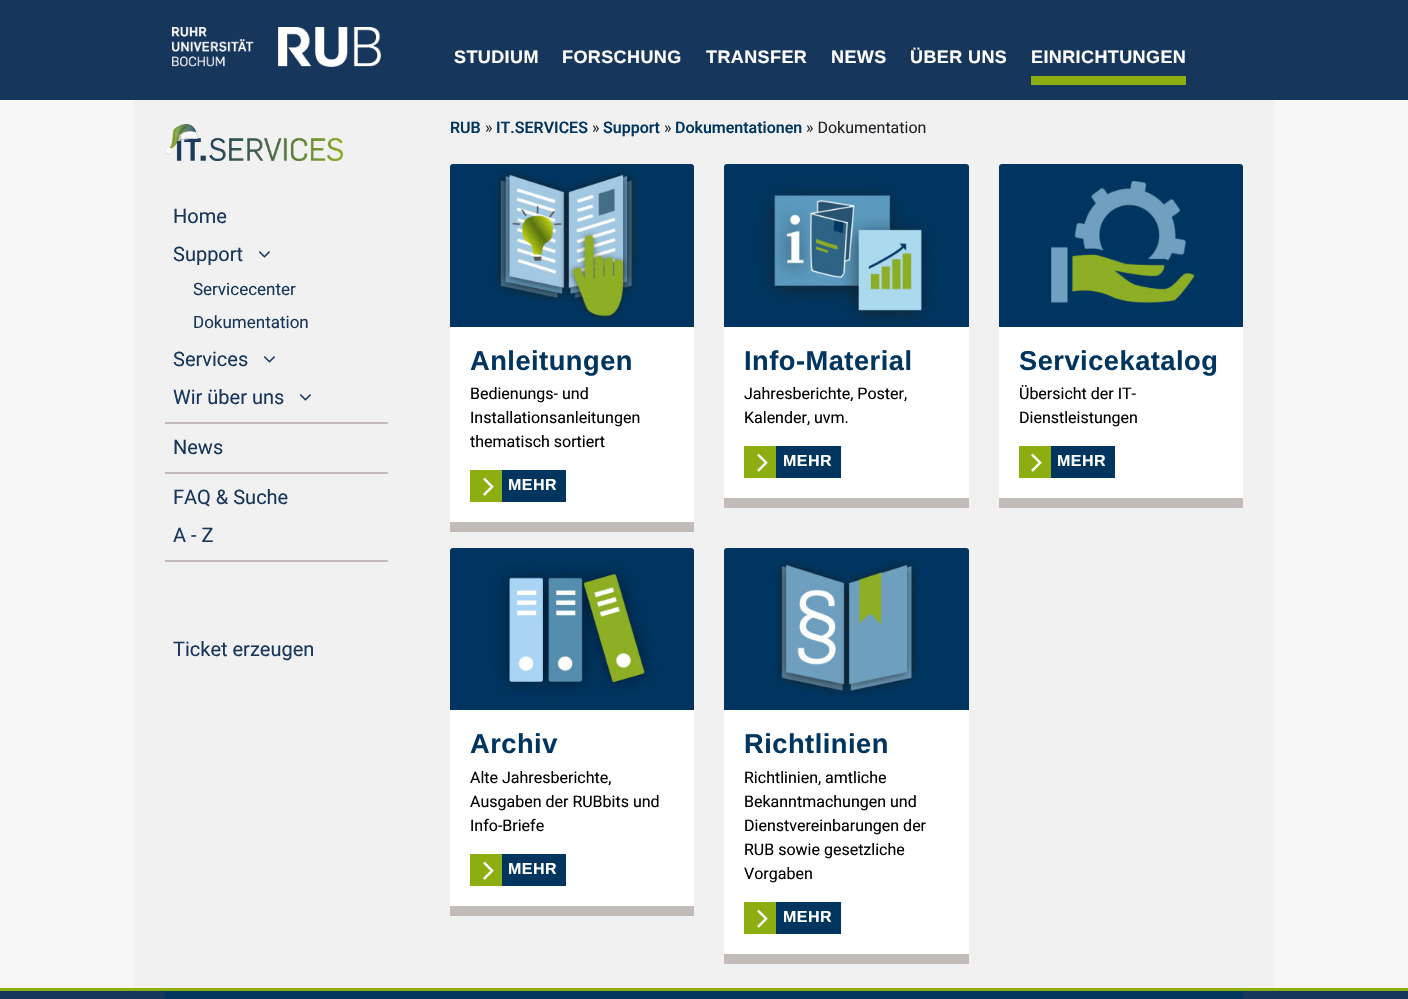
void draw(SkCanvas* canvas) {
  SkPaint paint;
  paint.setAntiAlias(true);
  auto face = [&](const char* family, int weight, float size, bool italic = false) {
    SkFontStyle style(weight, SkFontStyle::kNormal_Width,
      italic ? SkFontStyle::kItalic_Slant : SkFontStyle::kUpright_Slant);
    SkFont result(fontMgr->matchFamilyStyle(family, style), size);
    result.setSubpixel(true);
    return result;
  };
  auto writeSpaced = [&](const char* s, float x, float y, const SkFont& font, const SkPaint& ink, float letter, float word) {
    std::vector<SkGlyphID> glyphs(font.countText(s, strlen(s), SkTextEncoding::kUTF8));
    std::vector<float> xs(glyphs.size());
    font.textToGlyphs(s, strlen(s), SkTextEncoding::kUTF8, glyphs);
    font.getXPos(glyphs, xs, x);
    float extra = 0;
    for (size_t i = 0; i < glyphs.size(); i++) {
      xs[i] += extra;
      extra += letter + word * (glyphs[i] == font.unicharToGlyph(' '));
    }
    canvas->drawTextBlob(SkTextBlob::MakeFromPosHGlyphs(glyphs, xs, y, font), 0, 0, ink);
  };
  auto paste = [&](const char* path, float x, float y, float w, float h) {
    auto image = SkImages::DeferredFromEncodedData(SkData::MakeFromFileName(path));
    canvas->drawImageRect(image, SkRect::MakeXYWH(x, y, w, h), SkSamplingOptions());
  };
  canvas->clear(0xff17365c);
  paste("img/1.png", 172, 27, 209, 40);
  {
    const struct { float x, y, w, h; SkColor color; } items[] = {
      {1031, 76, 155, 9, 0xff8dae10},
      {0, 100, 1408, 888, 0xfff6f6f6},
      {134, 100, 1140, 888, 0xfff2f1f1},
    };
    for (auto [x, y, w, h, color] : items) {
      paint.setColor(color);
      canvas->drawRect(SkRect::MakeXYWH(x, y, w, h), paint);
    }
  }
  paste("img/2.png", 165, 124, 178, 37);
  paste("img/3.png", 258, 251, 12, 7);
  paste("img/3.png", 263, 356, 12, 7);
  paste("img/3.png", 299, 394, 12, 7);
  {
    const struct { float x, y, w, h; SkColor color; } items[] = {
      {165, 422, 223, 2, 0xffc1bab9},
      {165, 472, 223, 2, 0xffc1bab9},
      {165, 560, 223, 2, 0xffc1bab9},
      {450, 522, 244, 10, 0xffc1bbba},
      {450, 164, 244, 358, 0xffffffff},
    };
    for (auto [x, y, w, h, color] : items) {
      paint.setColor(color);
      canvas->drawRect(SkRect::MakeXYWH(x, y, w, h), paint);
    }
  }
  paste("img/4.png", 450, 164, 244, 163);
  paint.setColor(0xff8dae10);
  canvas->drawRect(SkRect::MakeXYWH(470, 470, 32, 32), paint);
  paste("img/5.png", 483, 477, 11, 19);
  {
    const struct { float x, y, w, h; SkColor color; } items[] = {
      {502, 470, 64, 32, 0xff003560},
      {724, 498, 245, 10, 0xffc1bbba},
      {724, 164, 245, 334, 0xffffffff},
    };
    for (auto [x, y, w, h, color] : items) {
      paint.setColor(color);
      canvas->drawRect(SkRect::MakeXYWH(x, y, w, h), paint);
    }
  }
  paste("img/6.png", 724, 164, 245, 163);
  paint.setColor(0xff8dae10);
  canvas->drawRect(SkRect::MakeXYWH(744, 446, 32, 32), paint);
  paste("img/5.png", 757, 453, 11, 19);
  {
    const struct { float x, y, w, h; SkColor color; } items[] = {
      {776, 446, 65, 32, 0xff003560},
      {999, 498, 244, 10, 0xffc1bbba},
      {999, 164, 244, 334, 0xffffffff},
    };
    for (auto [x, y, w, h, color] : items) {
      paint.setColor(color);
      canvas->drawRect(SkRect::MakeXYWH(x, y, w, h), paint);
    }
  }
  paste("img/7.png", 999, 164, 244, 163);
  paint.setColor(0xff8dae10);
  canvas->drawRect(SkRect::MakeXYWH(1019, 446, 32, 32), paint);
  paste("img/5.png", 1031, 453, 11, 19);
  {
    const struct { float x, y, w, h; SkColor color; } items[] = {
      {1051, 446, 64, 32, 0xff003560},
      {450, 906, 244, 10, 0xffc1bbba},
      {450, 548, 244, 358, 0xffffffff},
    };
    for (auto [x, y, w, h, color] : items) {
      paint.setColor(color);
      canvas->drawRect(SkRect::MakeXYWH(x, y, w, h), paint);
    }
  }
  paste("img/8.png", 450, 548, 244, 162);
  paint.setColor(0xff8dae10);
  canvas->drawRect(SkRect::MakeXYWH(470, 854, 32, 32), paint);
  paste("img/5.png", 483, 861, 11, 19);
  {
    const struct { float x, y, w, h; SkColor color; } items[] = {
      {502, 854, 64, 32, 0xff003560},
      {724, 954, 245, 10, 0xffc1bbba},
      {724, 548, 245, 406, 0xffffffff},
    };
    for (auto [x, y, w, h, color] : items) {
      paint.setColor(color);
      canvas->drawRect(SkRect::MakeXYWH(x, y, w, h), paint);
    }
  }
  paste("img/9.png", 724, 548, 245, 162);
  paint.setColor(0xff8dae10);
  canvas->drawRect(SkRect::MakeXYWH(744, 902, 32, 32), paint);
  paste("img/5.png", 757, 909, 11, 19);
  {
    const struct { float x, y, w, h; SkColor color; } items[] = {
      {776, 902, 65, 32, 0xff003560},
      {0, 988, 1408, 3, 0xff8dae10},
      {165, 991, 1078, 8, 0xff003560},
    };
    for (auto [x, y, w, h, color] : items) {
      paint.setColor(color);
      canvas->drawRect(SkRect::MakeXYWH(x, y, w, h), paint);
    }
  }
  auto f0 = face("Liberation Sans", 700, 18);
  paint.setColor(0xffffffff);
  {
    const struct { const char* s; float x, y; } items[] = {
      {"STUDIUM", 454, 63},
      {"FORSCHUNG", 562, 63},
      {"TRANSFER", 706, 63},
      {"NEWS", 831, 63},
      {"ÜBER UNS", 910, 63},
      {"EINRICHTUNGEN", 1031, 63},
    };
    for (auto [s, x, y] : items) {
      writeSpaced(s, x, y, f0, paint, 0.4f, 0);
    }
  }
  auto f1 = face("Roboto", 400, 20);
  paint.setColor(0xff17365c);
  canvas->drawString("Home", 173, 223, f1, paint);
  canvas->drawString("Support", 173, 261, f1, paint);
  auto f2 = face("Roboto", 400, 17);
  canvas->drawString("Servicecenter", 193, 295, f2, paint);
  canvas->drawString("Dokumentation", 193, 328, f2, paint);
  {
    const struct { const char* s; float x, y; } items[] = {
      {"Services", 173, 366},
      {"Wir über uns", 173, 404},
      {"News", 173, 454},
      {"FAQ & Suche", 173, 504},
      {"A - Z", 173, 542},
      {"Ticket erzeugen", 173, 656},
    };
    for (auto [s, x, y] : items) {
      canvas->drawString(s, x, y, f1, paint);
    }
  }
  auto f3 = face("Roboto", 500, 16);
  paint.setColor(0xff003560);
  canvas->drawString("RUB", 450, 133, f3, paint);
  auto f4 = face("Roboto", 400, 16);
  paint.setColor(0xff212529);
  canvas->drawString("»", 485, 133, f4, paint);
  paint.setColor(0xff003560);
  canvas->drawString("IT.SERVICES", 496, 133, f3, paint);
  paint.setColor(0xff212529);
  canvas->drawString("»", 592, 133, f4, paint);
  paint.setColor(0xff003560);
  canvas->drawString("Support", 603, 133, f3, paint);
  paint.setColor(0xff212529);
  canvas->drawString("»", 664, 133, f4, paint);
  paint.setColor(0xff003560);
  canvas->drawString("Dokumentationen", 675, 133, f3, paint);
  paint.setColor(0xff212529);
  canvas->drawString("» Dokumentation", 806, 133, f4, paint);
  auto f5 = face("Liberation Sans", 700, 27.25f);
  paint.setColor(0xff003560);
  writeSpaced("Anleitungen", 470, 370, f5, paint, 0.5f, 0);
  paint.setColor(0xff000000);
  {
    const struct { const char* s; float x, y; } items[] = {
      {"Bedienungs- und", 470, 399},
      {"Installationsanleitungen", 470, 423},
      {"thematisch sortiert", 470, 447},
    };
    for (auto [s, x, y] : items) {
      canvas->drawString(s, x, y, f4, paint);
    }
  }
  auto f6 = face("Liberation Sans", 700, 16);
  paint.setColor(0xffffffff);
  writeSpaced("MEHR", 508, 490, f6, paint, 0.5f, 0);
  paint.setColor(0xff003560);
  writeSpaced("Info-Material", 744, 370, f5, paint, 0.5f, 0);
  paint.setColor(0xff000000);
  canvas->drawString("Jahresberichte, Poster,", 744, 399, f4, paint);
  canvas->drawString("Kalender, uvm.", 744, 423, f4, paint);
  paint.setColor(0xffffffff);
  writeSpaced("MEHR", 783, 466, f6, paint, 0.5f, 0);
  paint.setColor(0xff003560);
  writeSpaced("Servicekatalog", 1019, 370, f5, paint, 0.5f, 0);
  paint.setColor(0xff000000);
  canvas->drawString("Übersicht der IT-", 1019, 399, f4, paint);
  canvas->drawString("Dienstleistungen", 1019, 423, f4, paint);
  paint.setColor(0xffffffff);
  writeSpaced("MEHR", 1057, 466, f6, paint, 0.5f, 0);
  paint.setColor(0xff003560);
  writeSpaced("Archiv", 470, 753, f5, paint, 0.5f, 0);
  paint.setColor(0xff000000);
  {
    const struct { const char* s; float x, y; } items[] = {
      {"Alte Jahresberichte,", 470, 783},
      {"Ausgaben der RUBbits und", 470, 807},
      {"Info-Briefe", 470, 831},
    };
    for (auto [s, x, y] : items) {
      canvas->drawString(s, x, y, f4, paint);
    }
  }
  paint.setColor(0xffffffff);
  writeSpaced("MEHR", 508, 874, f6, paint, 0.5f, 0);
  paint.setColor(0xff003560);
  writeSpaced("Richtlinien", 744, 753, f5, paint, 0.5f, 0);
  paint.setColor(0xff000000);
  {
    const struct { const char* s; float x, y; } items[] = {
      {"Richtlinien, amtliche", 744, 783},
      {"Bekanntmachungen und", 744, 807},
      {"Dienstvereinbarungen der", 744, 831},
      {"RUB sowie gesetzliche", 744, 855},
      {"Vorgaben", 744, 879},
    };
    for (auto [s, x, y] : items) {
      canvas->drawString(s, x, y, f4, paint);
    }
  }
  paint.setColor(0xffffffff);
  writeSpaced("MEHR", 783, 922, f6, paint, 0.5f, 0);
}
